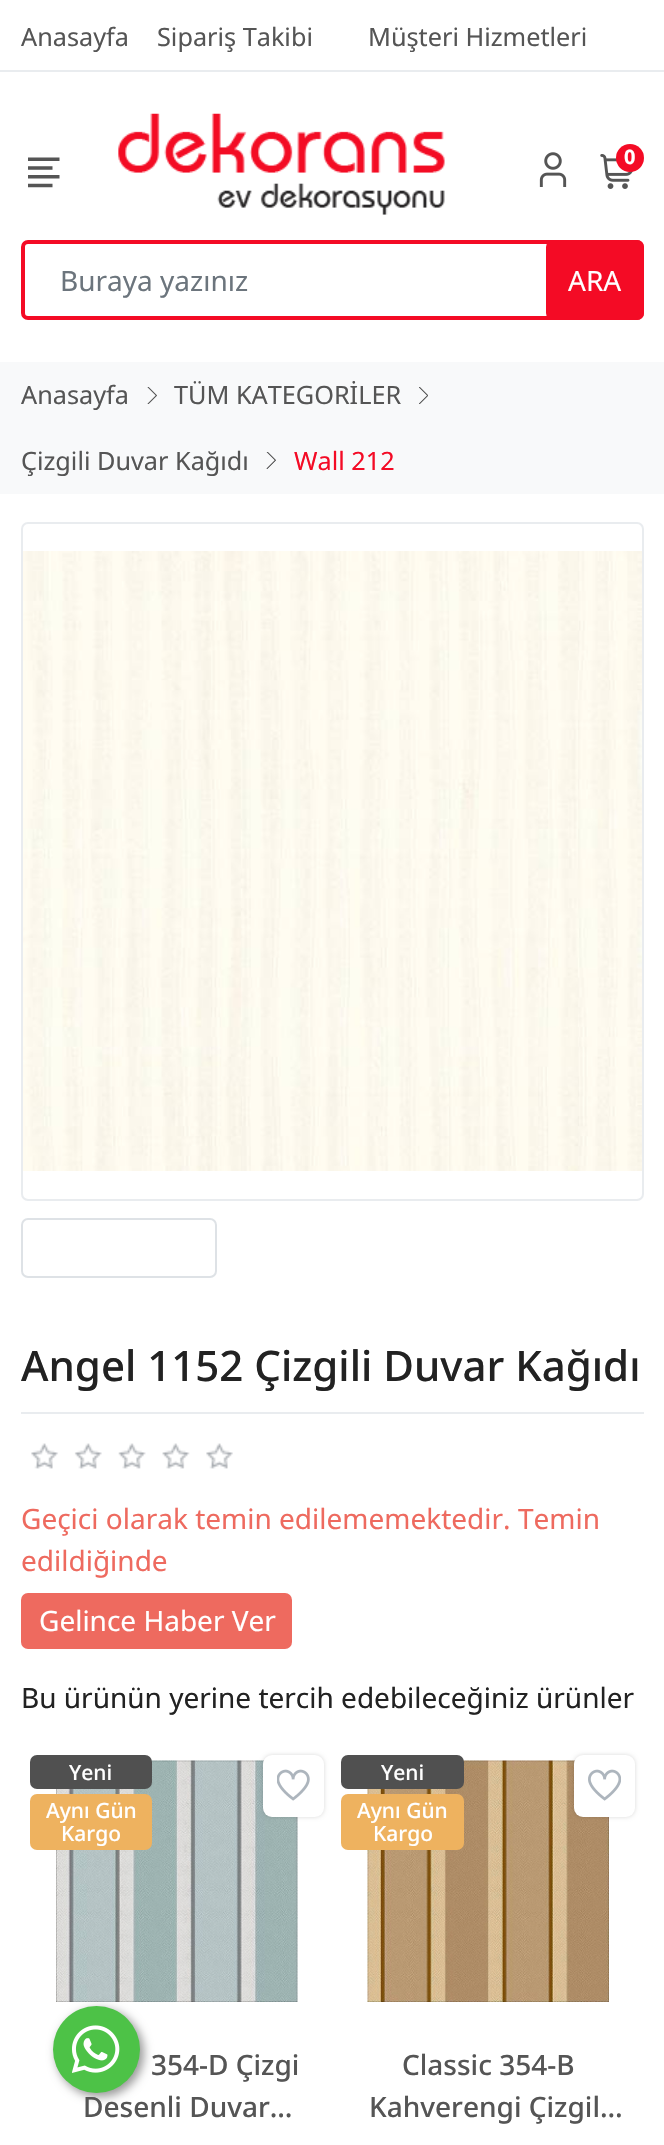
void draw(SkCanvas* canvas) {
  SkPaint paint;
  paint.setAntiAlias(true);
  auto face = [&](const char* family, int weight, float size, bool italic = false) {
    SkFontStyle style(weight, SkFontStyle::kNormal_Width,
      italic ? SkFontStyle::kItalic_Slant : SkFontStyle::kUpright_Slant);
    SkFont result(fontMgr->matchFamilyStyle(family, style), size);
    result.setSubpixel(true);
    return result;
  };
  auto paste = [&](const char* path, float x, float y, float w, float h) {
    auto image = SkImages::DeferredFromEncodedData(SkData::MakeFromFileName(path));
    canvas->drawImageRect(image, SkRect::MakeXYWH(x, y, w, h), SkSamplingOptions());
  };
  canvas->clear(0xffffffff);
  paint.setColor(0xffe9ecef);
  canvas->drawRect(SkRect::MakeXYWH(0, 70, 664, 2), paint);
  paste("img/1.png", 28, 157, 32, 31);
  paste("img/2.png", 118, 113, 327, 102);
  paste("img/3.png", 539, 152, 28, 35);
  paste("img/4.png", 600, 154, 33, 35);
  paint.setColor(0xfff40b25);
  canvas->drawCircle(630, 158, 14, paint);
  paint.setStroke(true);
  paint.setStrokeWidth(4);
  canvas->drawRoundRect(SkRect::MakeXYWH(23, 242, 619, 76), 5, 5, paint);
  paint.setStroke(false);
  canvas->drawRoundRect(SkRect::MakeXYWH(546, 240, 98, 80), 7, 7, paint);
  paint.setColor(0xfff8f9fa);
  canvas->drawRect(SkRect::MakeXYWH(0, 362, 664, 132), paint);
  paste("img/5.png", 147, 387, 10, 17);
  paste("img/6.png", 419, 387, 9, 17);
  paste("img/7.png", 266, 452, 10, 17);
  paint.setStroke(true);
  paint.setStrokeWidth(2);
  paint.setColor(0xffe9ecef);
  canvas->drawRoundRect(SkRect::MakeXYWH(22, 523, 621, 677), 6, 6, paint);
  paste("img/8.png", 23, 551, 619, 620);
  paint.setColor(0xffdee2e6);
  canvas->drawRoundRect(SkRect::MakeXYWH(22, 1219, 194, 58), 6, 6, paint);
  paint.setStroke(false);
  paint.setColor(0xffe9ecef);
  canvas->drawRect(SkRect::MakeXYWH(21, 1412, 623, 2), paint);
  paste("img/9.png", 31, 1443, 202, 26);
  paint.setColor(0xffee6a5f);
  canvas->drawRoundRect(SkRect::MakeXYWH(21, 1593, 271, 56), 7, 7, paint);
  paste("img/11.png", 56, 1760, 242, 242);
  paint.setColor(0x26000000);
  paint.setMaskFilter(SkMaskFilter::MakeBlur(kNormal_SkBlurStyle, 2));
  canvas->drawRoundRect(SkRect::MakeXYWH(263, 1755, 61, 62), 9, 9, paint);
  paint.setMaskFilter(nullptr);
  paint.setColor(0xffffffff);
  canvas->drawRoundRect(SkRect::MakeXYWH(263, 1755, 61, 62), 9, 9, paint);
  paste("img/10.png", 277, 1769, 33, 32);
  paint.setColor(0xff505050);
  canvas->drawRoundRect(SkRect::MakeXYWH(30, 1755, 122, 34), 7, 7, paint);
  paint.setColor(0xffeeb25f);
  canvas->drawRoundRect(SkRect::MakeXYWH(30, 1794, 122, 56), 7, 7, paint);
  paste("img/13.png", 367, 1760, 242, 242);
  paint.setColor(0x26000000);
  paint.setMaskFilter(SkMaskFilter::MakeBlur(kNormal_SkBlurStyle, 2));
  canvas->drawRoundRect(SkRect::MakeXYWH(574, 1755, 61, 62), 9, 9, paint);
  paint.setMaskFilter(nullptr);
  paint.setColor(0xffffffff);
  canvas->drawRoundRect(SkRect::MakeXYWH(574, 1755, 61, 62), 9, 9, paint);
  paste("img/12.png", 588, 1769, 33, 32);
  paint.setColor(0xff505050);
  canvas->drawRoundRect(SkRect::MakeXYWH(341, 1755, 123, 34), 7, 7, paint);
  paint.setColor(0xffeeb25f);
  canvas->drawRoundRect(SkRect::MakeXYWH(341, 1794, 123, 56), 7, 7, paint);
  paint.setColor(0x66000000);
  paint.setMaskFilter(SkMaskFilter::MakeBlur(kNormal_SkBlurStyle, 5));
  canvas->drawRoundRect(SkRect::MakeXYWH(56, 2009, 88, 88), 44, 44, paint);
  paint.setMaskFilter(nullptr);
  paint.setColor(0xff4dc247);
  canvas->drawCircle(96.5f, 2049.5f, 43.5f, paint);
  paste("img/14.png", 72, 2025, 48, 48);
  auto f0 = face("Noto Sans", 400, 25.25f);
  paint.setColor(0xff555555);
  {
    const struct { const char* s; float x, y; } items[] = {
      {"Anasayfa", 21, 46},
      {"Sipariş Takibi", 157, 46},
      {"Müşteri Hizmetleri", 368, 46},
    };
    for (auto [s, x, y] : items) {
      canvas->drawString(s, x, y, f0, paint);
    }
  }
  auto f1 = face("Noto Sans", 700, 20);
  paint.setColor(0xffffffff);
  canvas->drawString("0", 624, 164, f1, paint);
  auto f2 = face("Noto Sans", 400, 28);
  paint.setColor(0xff6c757d);
  canvas->drawString("Buraya yazınız", 60, 291, f2, paint);
  paint.setColor(0xffffffff);
  canvas->drawString("ARA", 568, 291, f2, paint);
  paint.setColor(0xff555555);
  {
    const struct { const char* s; float x, y; } items[] = {
      {"Anasayfa", 21, 404},
      {"TÜM KATEGORİLER", 174, 404},
      {"Çizgili Duvar Kağıdı", 21, 470},
    };
    for (auto [s, x, y] : items) {
      canvas->drawString(s, x, y, f0, paint);
    }
  }
  paint.setColor(0xfff40b25);
  canvas->drawString("Wall 212", 294, 470, f0, paint);
  auto f3 = face("Noto Sans", 500, 42);
  paint.setColor(0xff222222);
  canvas->drawString("Angel 1152 Çizgili Duvar Kağıdı", 21, 1381, f3, paint);
  paint.setColor(0xffee6a5f);
  canvas->drawString("Geçici olarak temin edilememektedir. Temin", 21, 1529, f2, paint);
  canvas->drawString("edildiğinde", 21, 1571, f2, paint);
  paint.setColor(0xffffffff);
  canvas->drawString("Gelince Haber Ver", 39, 1631, f2, paint);
  paint.setColor(0xff222222);
  canvas->drawString("Bu ürünün yerine tercih edebileceğiniz ürünler", 21, 1708, f2, paint);
  auto f4 = face("Noto Sans", 500, 21);
  paint.setColor(0xffffffff);
  {
    const struct { const char* s; float x, y; } items[] = {
      {"Yeni", 69, 1780},
      {"Aynı Gün", 46, 1818},
      {"Kargo", 61, 1841},
    };
    for (auto [s, x, y] : items) {
      canvas->drawString(s, x, y, f4, paint);
    }
  }
  auto f5 = face("Noto Sans", 500, 28);
  paint.setColor(0xff555555);
  canvas->drawString("354-D Çizgi", 151, 2075, f5, paint);
  canvas->drawString("Desenli Duvar…", 83, 2117, f5, paint);
  paint.setColor(0xffffffff);
  {
    const struct { const char* s; float x, y; } items[] = {
      {"Yeni", 381, 1780},
      {"Aynı Gün", 357, 1818},
      {"Kargo", 373, 1841},
    };
    for (auto [s, x, y] : items) {
      canvas->drawString(s, x, y, f4, paint);
    }
  }
  paint.setColor(0xff555555);
  canvas->drawString("Classic 354-B", 402, 2075, f5, paint);
  canvas->drawString("Kahverengi Çizgil…", 369, 2117, f5, paint);
}
